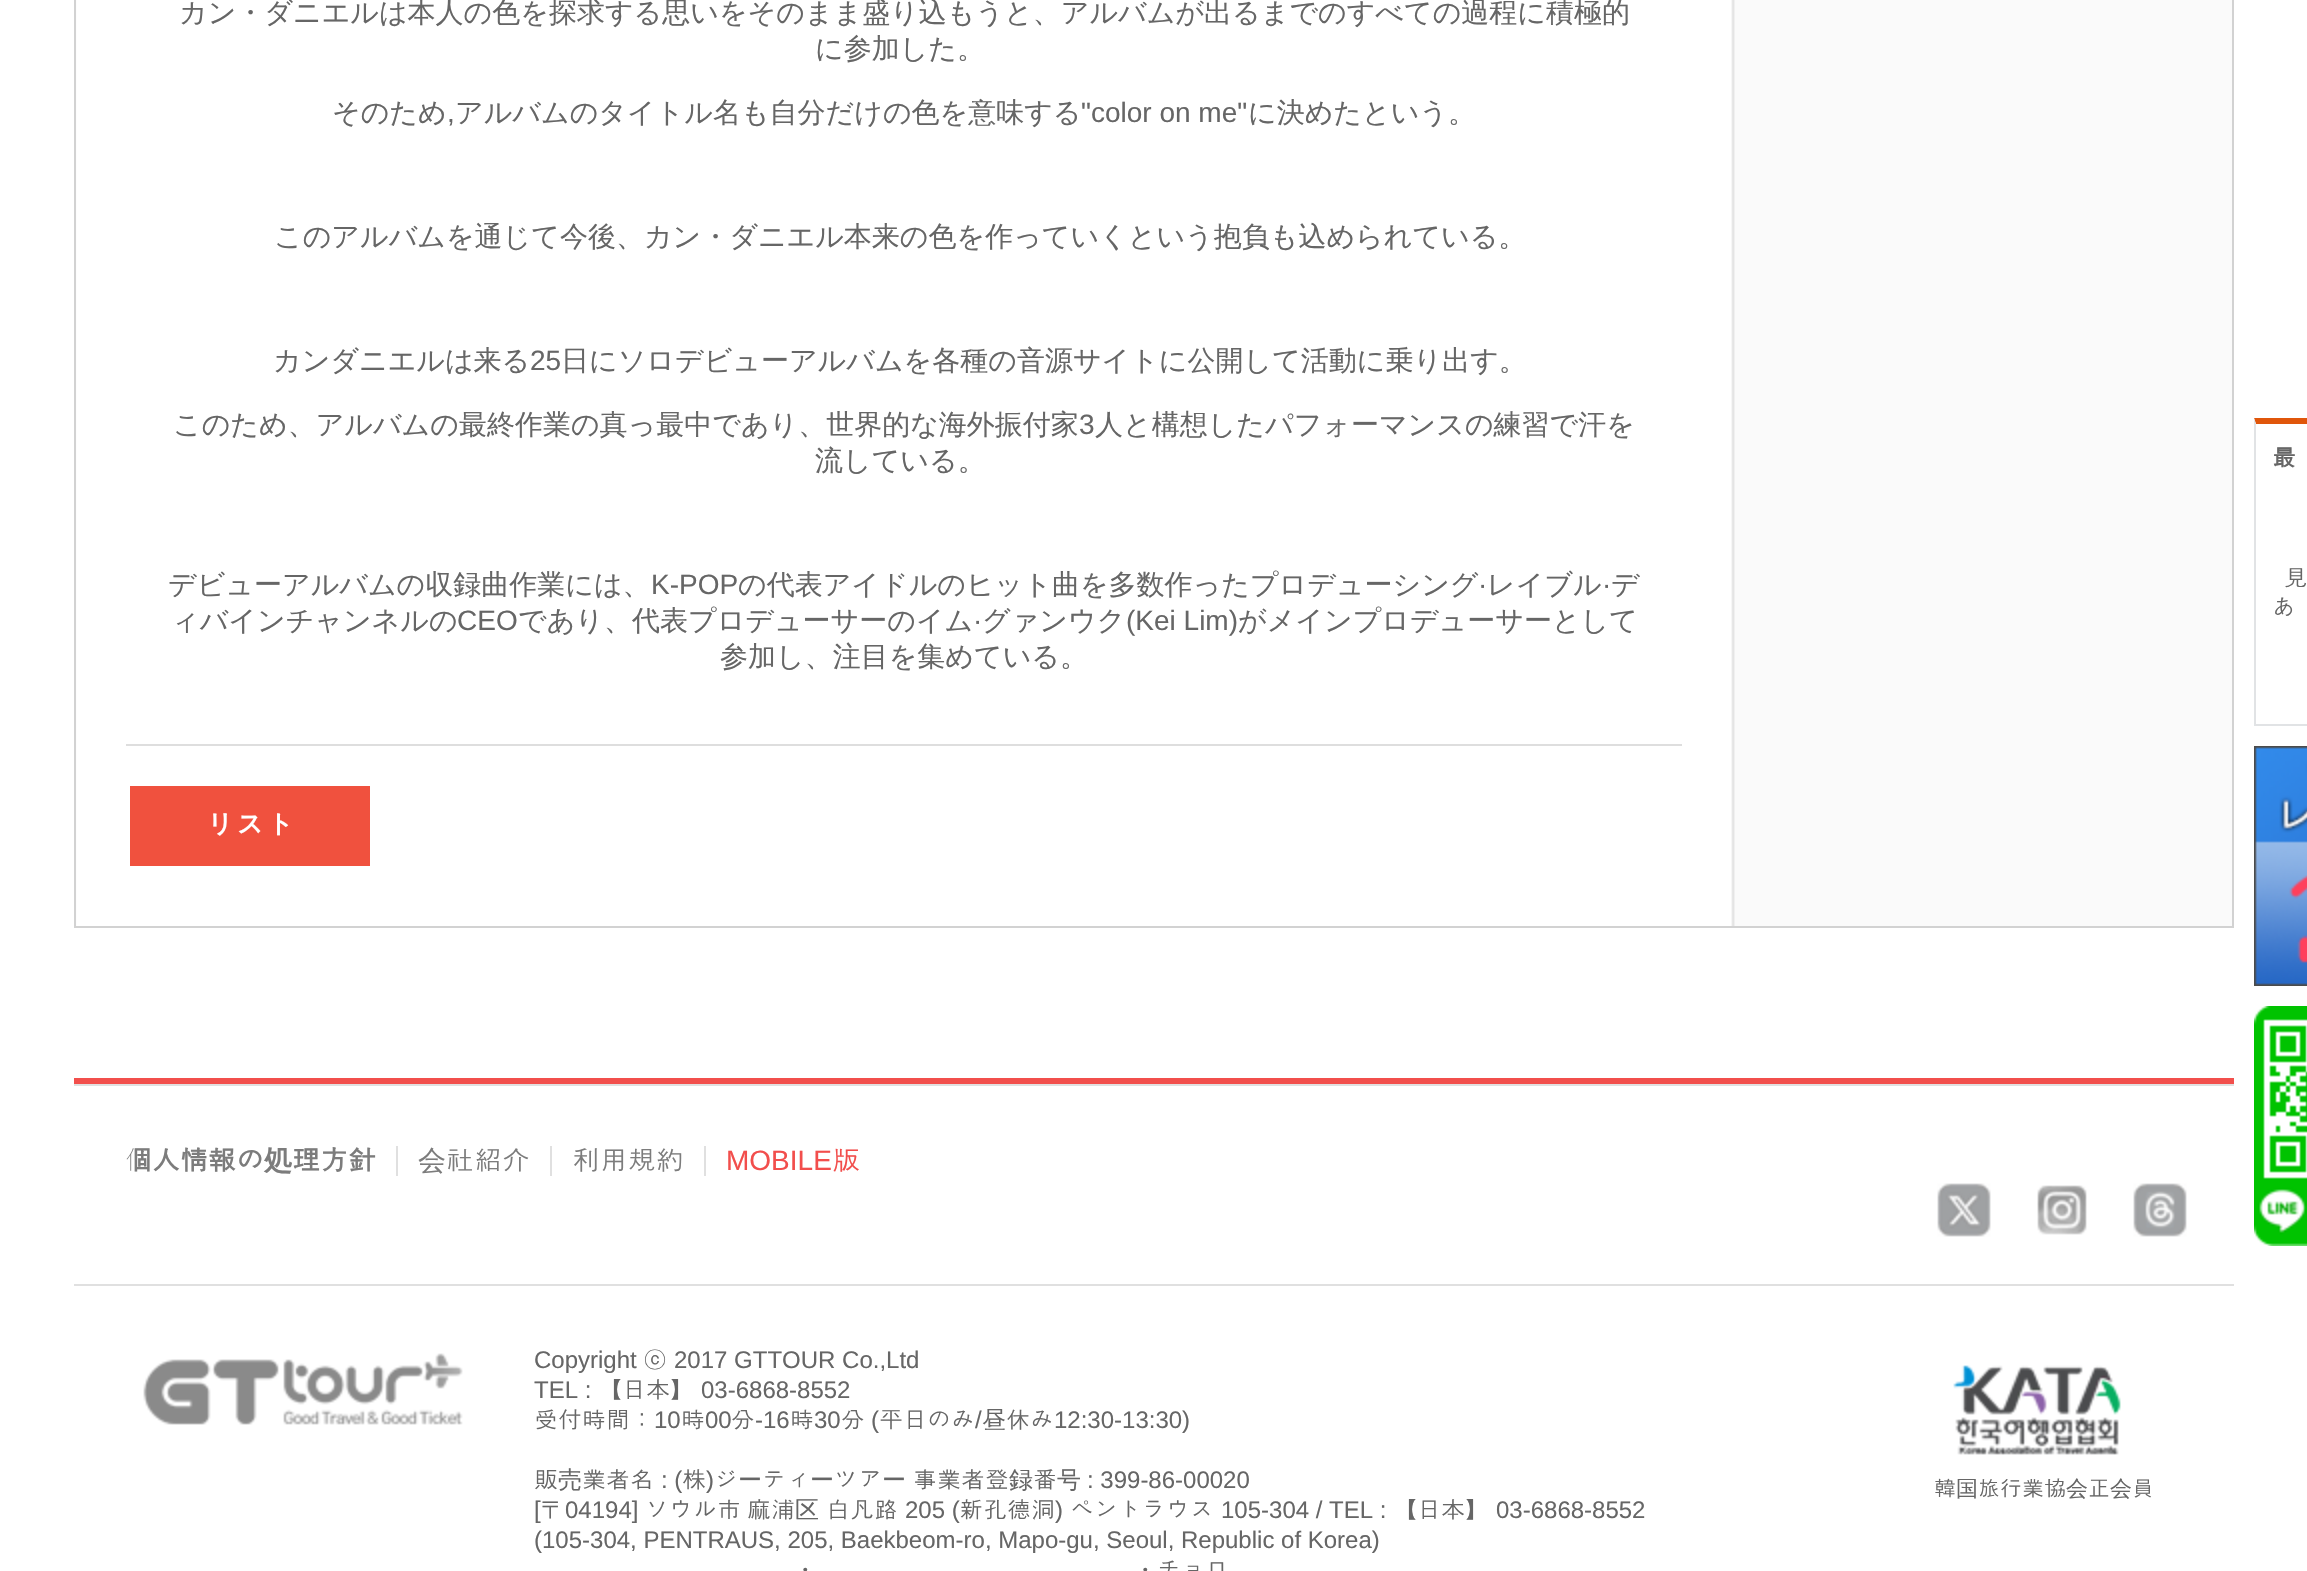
void draw(SkCanvas* canvas) {
  SkPaint paint;
  paint.setAntiAlias(true);
  auto face = [&](const char* family, int weight, float size, bool italic = false) {
    SkFontStyle style(weight, SkFontStyle::kNormal_Width,
      italic ? SkFontStyle::kItalic_Slant : SkFontStyle::kUpright_Slant);
    SkFont result(fontMgr->matchFamilyStyle(family, style), size);
    result.setSubpixel(true);
    return result;
  };
  auto paste = [&](const char* path, float x, float y, float w, float h) {
    auto image = SkImages::DeferredFromEncodedData(SkData::MakeFromFileName(path));
    canvas->drawImageRect(image, SkRect::MakeXYWH(x, y, w, h), SkSamplingOptions());
  };
  auto shape = [&](const char* data, bool evenOdd = false) {
    SkPath result = *SkParsePath::FromSVGString(data);
    if (evenOdd) result.setFillType(SkPathFillType::kEvenOdd);
    return result;
  };
  canvas->clear(0xffffffff);
  paste("img/1.png", 76, 0, 2156, 926);
  paint.setColor(0xffd2d2d2);
  canvas->drawPath(shape("M2234-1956V928L2232 926V-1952Z"), paint);
  canvas->drawRect(SkRect::MakeXYWH(74, 926, 2160, 2), paint);
  canvas->drawPath(shape("M74 928V-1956L76-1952V926Z"), paint);
  paint.setColor(0xffdedede);
  canvas->drawRect(SkRect::MakeXYWH(126, 744, 1556, 2), paint);
  paint.setColor(0xfff0513e);
  canvas->drawRect(SkRect::MakeXYWH(130, 786, 240, 80), paint);
  paint.setColor(0xffe0560b);
  canvas->drawPath(shape("M2254 418H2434L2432 424H2256Z"), paint);
  paint.setColor(0xffe1e3e5);
  canvas->drawRect(SkRect::MakeXYWH(2254, 724, 53, 2), paint);
  canvas->drawPath(shape("M2254 726V418L2256 424V724Z"), paint);
  paste("img/2.png", 2254, 746, 53, 240);
  paste("img/3.png", 2254, 1006, 53, 240);
  {
    const struct { float x, y, w, h; SkColor color; } items[] = {
      {74, 1078, 2160, 6, 0xfff24f4c},
      {74, 1084, 2160, 2, 0xffe0e0e0},
      {74, 1284, 2160, 2, 0xffe0e0e0},
      {396, 1146, 2, 30, 0xffe0e0e0},
      {550, 1146, 2, 30, 0xffe0e0e0},
      {704, 1146, 2, 30, 0xffe0e0e0},
    };
    for (auto [x, y, w, h, color] : items) {
      paint.setColor(color);
      canvas->drawRect(SkRect::MakeXYWH(x, y, w, h), paint);
    }
  }
  paste("img/4.png", 1937, 1183, 54, 54);
  paste("img/5.png", 2037, 1185, 50, 50);
  paste("img/6.png", 2133, 1183, 54, 54);
  paste("img/7.png", 143, 1353, 320, 72);
  paste("img/8.png", 1953, 1365, 168, 90);
  auto f0 = face("WenQuanYi Zen Hei", 500, 28);
  paint.setColor(0xff666666);
  {
    const struct { const char* s; float x, y; } items[] = {
      {"カン・ダニエルは本人の色を探求する思いをそのまま盛り込もうと、アルバムが出るまでのすべての過程に積極的", 179, 22},
      {"に参加した。", 815, 58},
      {"そのため", 332, 122},
    };
    for (auto [s, x, y] : items) {
      canvas->drawString(s, x, y, f0, paint);
    }
  }
  auto f1 = face("Liberation Sans", 400, 28);
  canvas->drawString(",", 447, 122, f1, paint);
  canvas->drawString("アルバムのタイトル名も自分だけの色を意味する", 455, 122, f0, paint);
  canvas->drawString("\"color on me\"", 1081, 122, f1, paint);
  {
    const struct { const char* s; float x, y; } items[] = {
      {"に決めたという。", 1248, 122},
      {"このアルバムを通じて今後、カン・ダニエル本来の色を作っていくという抱負も込められている。", 274, 246},
      {"カンダニエルは来る", 273, 370},
    };
    for (auto [s, x, y] : items) {
      canvas->drawString(s, x, y, f0, paint);
    }
  }
  canvas->drawString("25", 530, 370, f1, paint);
  canvas->drawString("日にソロデビューアルバムを各種の音源サイトに公開して活動に乗り出す。", 561, 370, f0, paint);
  canvas->drawString("このため、アルバムの最終作業の真っ最中であり、世界的な海外振付家", 173, 434, f0, paint);
  canvas->drawString("3", 1079, 434, f1, paint);
  {
    const struct { const char* s; float x, y; } items[] = {
      {"人と構想したパフォーマンスの練習で汗を", 1095, 434},
      {"流している。", 815, 470},
      {"デビューアルバムの収録曲作業には、", 168, 594},
    };
    for (auto [s, x, y] : items) {
      canvas->drawString(s, x, y, f0, paint);
    }
  }
  canvas->drawString("K-POP", 651, 594, f1, paint);
  canvas->drawString("の代表アイドルのヒット曲を多数作ったプロデューシング", 738, 594, f0, paint);
  canvas->drawString("·", 1478, 594, f1, paint);
  canvas->drawString("レイブル", 1487, 594, f0, paint);
  canvas->drawString("·", 1602, 594, f1, paint);
  canvas->drawString("デ", 1611, 594, f0, paint);
  canvas->drawString("ィバインチャンネルの", 171, 630, f0, paint);
  canvas->drawString("CEO", 457, 630, f1, paint);
  canvas->drawString("であり、代表プロデューサーのイム", 518, 630, f0, paint);
  canvas->drawString("·", 973, 630, f1, paint);
  canvas->drawString("グァンウク", 982, 630, f0, paint);
  canvas->drawString("(Kei Lim)", 1126, 630, f1, paint);
  canvas->drawString("がメインプロデューサーとして", 1238, 630, f0, paint);
  canvas->drawString("参加し、注目を集めている。", 720, 666, f0, paint);
  auto f2 = face("Dotum", 700, 30);
  paint.setColor(0xffffffff);
  canvas->drawString("リスト", 205, 836, f2, paint);
  auto f3 = face("Dotum", 700, 24);
  paint.setColor(0xff666666);
  canvas->drawString("最", 2272, 466, f3, paint);
  auto f4 = face("Dotum", 400, 24);
  canvas->drawString("見", 2284, 586, f4, paint);
  canvas->drawString("あ", 2272, 616, f4, paint);
  auto f5 = face("Dotum", 700, 28);
  paint.setColor(0xff7c7c7c);
  canvas->drawString("個人情報の", 124, 1170, f5, paint);
  auto f6 = face("WenQuanYi Zen Hei", 700, 28);
  canvas->drawString("処", 264, 1170, f6, paint);
  canvas->drawString("理方針", 292, 1170, f5, paint);
  canvas->drawString("会", 418, 1170, f0, paint);
  auto f7 = face("Dotum", 400, 28);
  canvas->drawString("社紹介", 446, 1170, f7, paint);
  canvas->drawString("利用規約", 572, 1170, f7, paint);
  paint.setColor(0xfff24e4c);
  canvas->drawString("MOBILE", 726, 1170, f1, paint);
  canvas->drawString("版", 832, 1170, f7, paint);
  auto f8 = face("Liberation Sans", 400, 24);
  paint.setColor(0xff666666);
  canvas->drawString("Copyright", 534, 1368, f8, paint);
  canvas->drawString("ⓒ", 643, 1368, f4, paint);
  canvas->drawString("2017 GTTOUR Co.,Ltd", 674, 1368, f8, paint);
  canvas->drawString("TEL :", 534, 1398, f8, paint);
  canvas->drawString("【日本】", 598, 1398, f4, paint);
  canvas->drawString("03-6868-8552", 701, 1398, f8, paint);
  canvas->drawString("受付時間：", 534, 1428, f4, paint);
  canvas->drawString("10", 654, 1428, f8, paint);
  canvas->drawString("時", 681, 1428, f4, paint);
  canvas->drawString("00", 705, 1428, f8, paint);
  canvas->drawString("分", 731, 1428, f4, paint);
  canvas->drawString("-16", 755, 1428, f8, paint);
  canvas->drawString("時", 790, 1428, f4, paint);
  canvas->drawString("30", 814, 1428, f8, paint);
  canvas->drawString("分", 841, 1428, f4, paint);
  canvas->drawString("(", 871, 1428, f8, paint);
  canvas->drawString("平日のみ", 879, 1428, f4, paint);
  canvas->drawString("/", 975, 1428, f8, paint);
  auto f9 = face("WenQuanYi Zen Hei", 500, 24);
  canvas->drawString("昼", 982, 1428, f9, paint);
  canvas->drawString("休み", 1006, 1428, f4, paint);
  canvas->drawString("12:30-13:30)", 1054, 1428, f8, paint);
  canvas->drawString("販", 534, 1488, f4, paint);
  canvas->drawString("売", 558, 1488, f9, paint);
  canvas->drawString("業者名", 582, 1488, f4, paint);
  canvas->drawString(": (", 661, 1488, f8, paint);
  canvas->drawString("株 ジ", 682, 1488, f4, paint);
  canvas->drawString("事業者登", 913, 1488, f4, paint);
  canvas->drawString("録", 1009, 1488, f9, paint);
  canvas->drawString("番", 1033, 1488, f4, paint);
  canvas->drawString("号", 1057, 1488, f9, paint);
  canvas->drawString(")", 706, 1488, f8, paint);
  canvas->drawString("ー", 738, 1488, f9, paint);
  canvas->drawString("ティ", 762, 1488, f4, paint);
  canvas->drawString("ー", 810, 1488, f9, paint);
  canvas->drawString("ツア", 834, 1488, f4, paint);
  canvas->drawString("ー", 882, 1488, f9, paint);
  canvas->drawString(": 399-86-00020", 1087, 1488, f8, paint);
  canvas->drawString("[", 534, 1518, f8, paint);
  canvas->drawString("〒", 541, 1518, f9, paint);
  canvas->drawString("04194]", 565, 1518, f8, paint);
  canvas->drawString("ソウル市", 645, 1518, f4, paint);
  canvas->drawString("麻浦", 747, 1518, f4, paint);
  canvas->drawString("区", 795, 1518, f9, paint);
  canvas->drawString("白凡路", 826, 1518, f4, paint);
  canvas->drawString("205 (", 905, 1518, f8, paint);
  canvas->drawString("新孔德洞", 959, 1518, f4, paint);
  canvas->drawString(")", 1055, 1518, f8, paint);
  canvas->drawString("ペントラウス", 1070, 1518, f4, paint);
  canvas->drawString("105-304 / TEL :", 1221, 1518, f8, paint);
  canvas->drawString("【日本】", 1393, 1518, f4, paint);
  canvas->drawString("03-6868-8552", 1496, 1518, f8, paint);
  canvas->drawString("(105-304, PENTRAUS, 205, Baekbeom-ro, Mapo-gu, Seoul, Republic of Korea)", 534, 1548, f8, paint);
  canvas->drawString("・", 793, 1578, f9, paint);
  canvas->drawString("・", 1133, 1578, f9, paint);
  canvas->drawString("チョロ", 1157, 1578, f4, paint);
  auto f10 = face("Dotum", 400, 22);
  canvas->drawString("韓", 1934, 1496, f10, paint);
  auto f11 = face("WenQuanYi Zen Hei", 500, 22);
  canvas->drawString("国", 1956, 1496, f11, paint);
  canvas->drawString("旅行業協", 1978, 1496, f10, paint);
  canvas->drawString("会", 2066, 1496, f11, paint);
  canvas->drawString("正", 2088, 1496, f10, paint);
  canvas->drawString("会", 2110, 1496, f11, paint);
  canvas->drawString("員", 2132, 1496, f10, paint);
}
